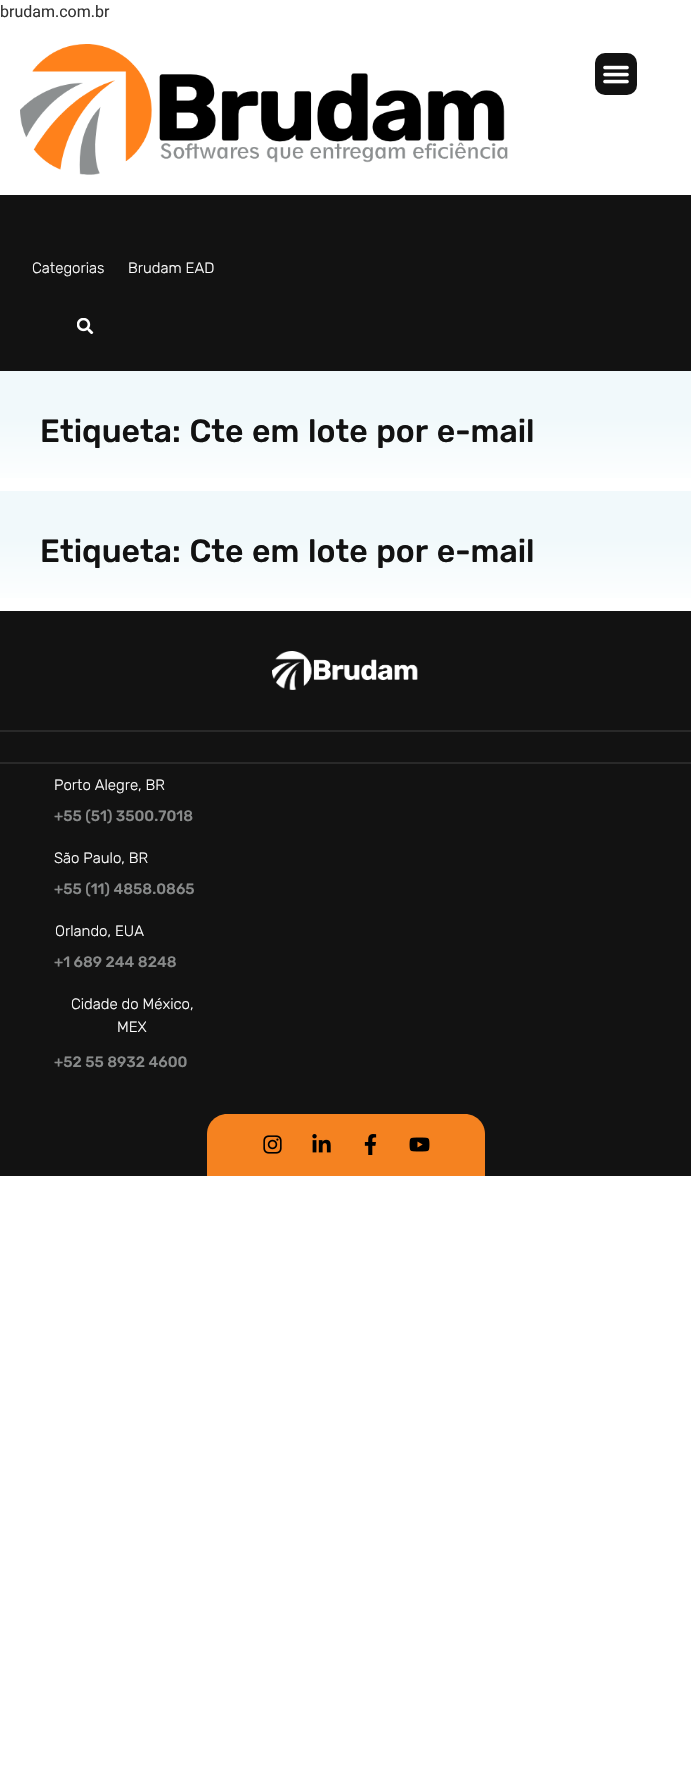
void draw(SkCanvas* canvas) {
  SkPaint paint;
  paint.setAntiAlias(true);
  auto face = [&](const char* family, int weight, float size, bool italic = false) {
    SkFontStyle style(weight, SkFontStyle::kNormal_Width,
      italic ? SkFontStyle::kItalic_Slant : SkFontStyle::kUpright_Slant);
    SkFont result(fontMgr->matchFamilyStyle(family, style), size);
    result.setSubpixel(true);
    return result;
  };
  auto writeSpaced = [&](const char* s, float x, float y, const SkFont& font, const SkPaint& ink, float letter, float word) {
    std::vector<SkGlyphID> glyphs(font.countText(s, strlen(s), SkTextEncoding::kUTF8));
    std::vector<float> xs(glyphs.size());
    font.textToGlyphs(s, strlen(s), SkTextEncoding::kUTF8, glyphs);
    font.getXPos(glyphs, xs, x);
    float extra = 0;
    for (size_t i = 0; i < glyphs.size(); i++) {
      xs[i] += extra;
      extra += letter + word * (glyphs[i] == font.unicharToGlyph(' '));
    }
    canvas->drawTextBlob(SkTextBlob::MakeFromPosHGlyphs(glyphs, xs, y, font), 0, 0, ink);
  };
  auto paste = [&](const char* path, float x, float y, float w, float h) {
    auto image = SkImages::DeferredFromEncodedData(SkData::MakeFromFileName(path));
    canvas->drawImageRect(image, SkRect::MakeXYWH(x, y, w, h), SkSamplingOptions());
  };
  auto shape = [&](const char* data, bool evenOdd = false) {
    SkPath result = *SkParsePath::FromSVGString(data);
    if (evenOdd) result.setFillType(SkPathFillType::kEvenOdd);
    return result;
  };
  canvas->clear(0xffffffff);
  paste("img/1.png", 20, 44, 488, 131);
  paint.setColor(0xff121212);
  canvas->drawRoundRect(SkRect::MakeXYWH(595, 53, 42, 42), 10, 10, paint);
  paste("img/2.png", 603, 65, 26, 19);
  canvas->drawRect(SkRect::MakeXYWH(0, 195, 691, 176), paint);
  paste("img/3.png", 77, 318, 17, 16);
  {
    const SkColor colors[] = {0xfff1f9fb, 0xffffffff};
    const float stops[] = {0.4f, 1};
    const SkPoint ends[] = {{346, 371}, {346, 491}};
    paint.setShader(SkGradientShader::MakeLinear(ends, colors, stops, 2, SkTileMode::kClamp));
    paint.setAlpha(255);
  }
  canvas->drawRect(SkRect::MakeXYWH(0, 371, 691, 107), paint);
  {
    const SkColor colors[] = {0xfff1f9fb, 0xffffffff};
    const float stops[] = {0.4f, 1};
    const SkPoint ends[] = {{346, 491}, {346, 611}};
    paint.setShader(SkGradientShader::MakeLinear(ends, colors, stops, 2, SkTileMode::kClamp));
    paint.setAlpha(255);
  }
  canvas->drawRect(SkRect::MakeXYWH(0, 491, 691, 107), paint);
  paint.setShader(nullptr);
  paint.setColor(0xff121212);
  canvas->drawRect(SkRect::MakeXYWH(0, 611, 691, 119), paint);
  paint.setColor(0xff292929);
  canvas->drawRect(SkRect::MakeXYWH(0, 730, 691, 2), paint);
  paste("img/4.png", 272, 651, 146, 39);
  paint.setColor(0xff121212);
  canvas->drawRect(SkRect::MakeXYWH(0, 732, 691, 444), paint);
  paint.setColor(0xff292929);
  canvas->drawRect(SkRect::MakeXYWH(0, 762, 691, 2), paint);
  paint.setColor(0xfff58220);
  canvas->drawPath(shape("M227 1114H465C476 1114 485 1123 485 1134V1176H207V1134C207 1123 216 1114 227 1114Z"), paint);
  paste("img/5.png", 263, 1135, 19, 19);
  paste("img/6.png", 312, 1134, 19, 19);
  paste("img/7.png", 364, 1134, 13, 21);
  paste("img/8.png", 409, 1137, 21, 15);
  auto f0 = face("Roboto", 400, 16);
  paint.setColor(0xff333333);
  canvas->drawString("brudam.com.br", 0, 17, f0, paint);
  auto f1 = face("Rubik", 300, 15);
  paint.setColor(0xffffffff);
  canvas->drawString("Categorias", 32, 273, f1, paint);
  canvas->drawString("Brudam EAD", 128, 273, f1, paint);
  auto f2 = face("Rubik", 500, 32);
  paint.setColor(0xff121212);
  writeSpaced("Etiqueta: Cte em lote por e-mail", 40, 442, f2, paint, 0, 1.25f);
  writeSpaced("Etiqueta: Cte em lote por e-mail", 40, 562, f2, paint, 0, 1.25f);
  paint.setColor(0xffffffff);
  canvas->drawString("Porto Alegre, BR", 54, 790, f1, paint);
  auto f3 = face("Rubik", 500, 15);
  paint.setColor(0xff888a8a);
  canvas->drawString("+55 (51) 3500.7018", 54, 821, f3, paint);
  paint.setColor(0xffffffff);
  canvas->drawString("São Paulo, BR", 54, 863, f1, paint);
  paint.setColor(0xff888a8a);
  canvas->drawString("+55 (11) 4858.0865", 54, 894, f3, paint);
  paint.setColor(0xffffffff);
  canvas->drawString("Orlando, EUA", 55, 936, f1, paint);
  paint.setColor(0xff888a8a);
  canvas->drawString("+1 689 244 8248", 54, 967, f3, paint);
  paint.setColor(0xffffffff);
  canvas->drawString("Cidade do México,", 71, 1009, f1, paint);
  canvas->drawString("MEX", 117, 1032, f1, paint);
  paint.setColor(0xff888a8a);
  canvas->drawString("+52 55 8932 4600", 54, 1067, f3, paint);
}
